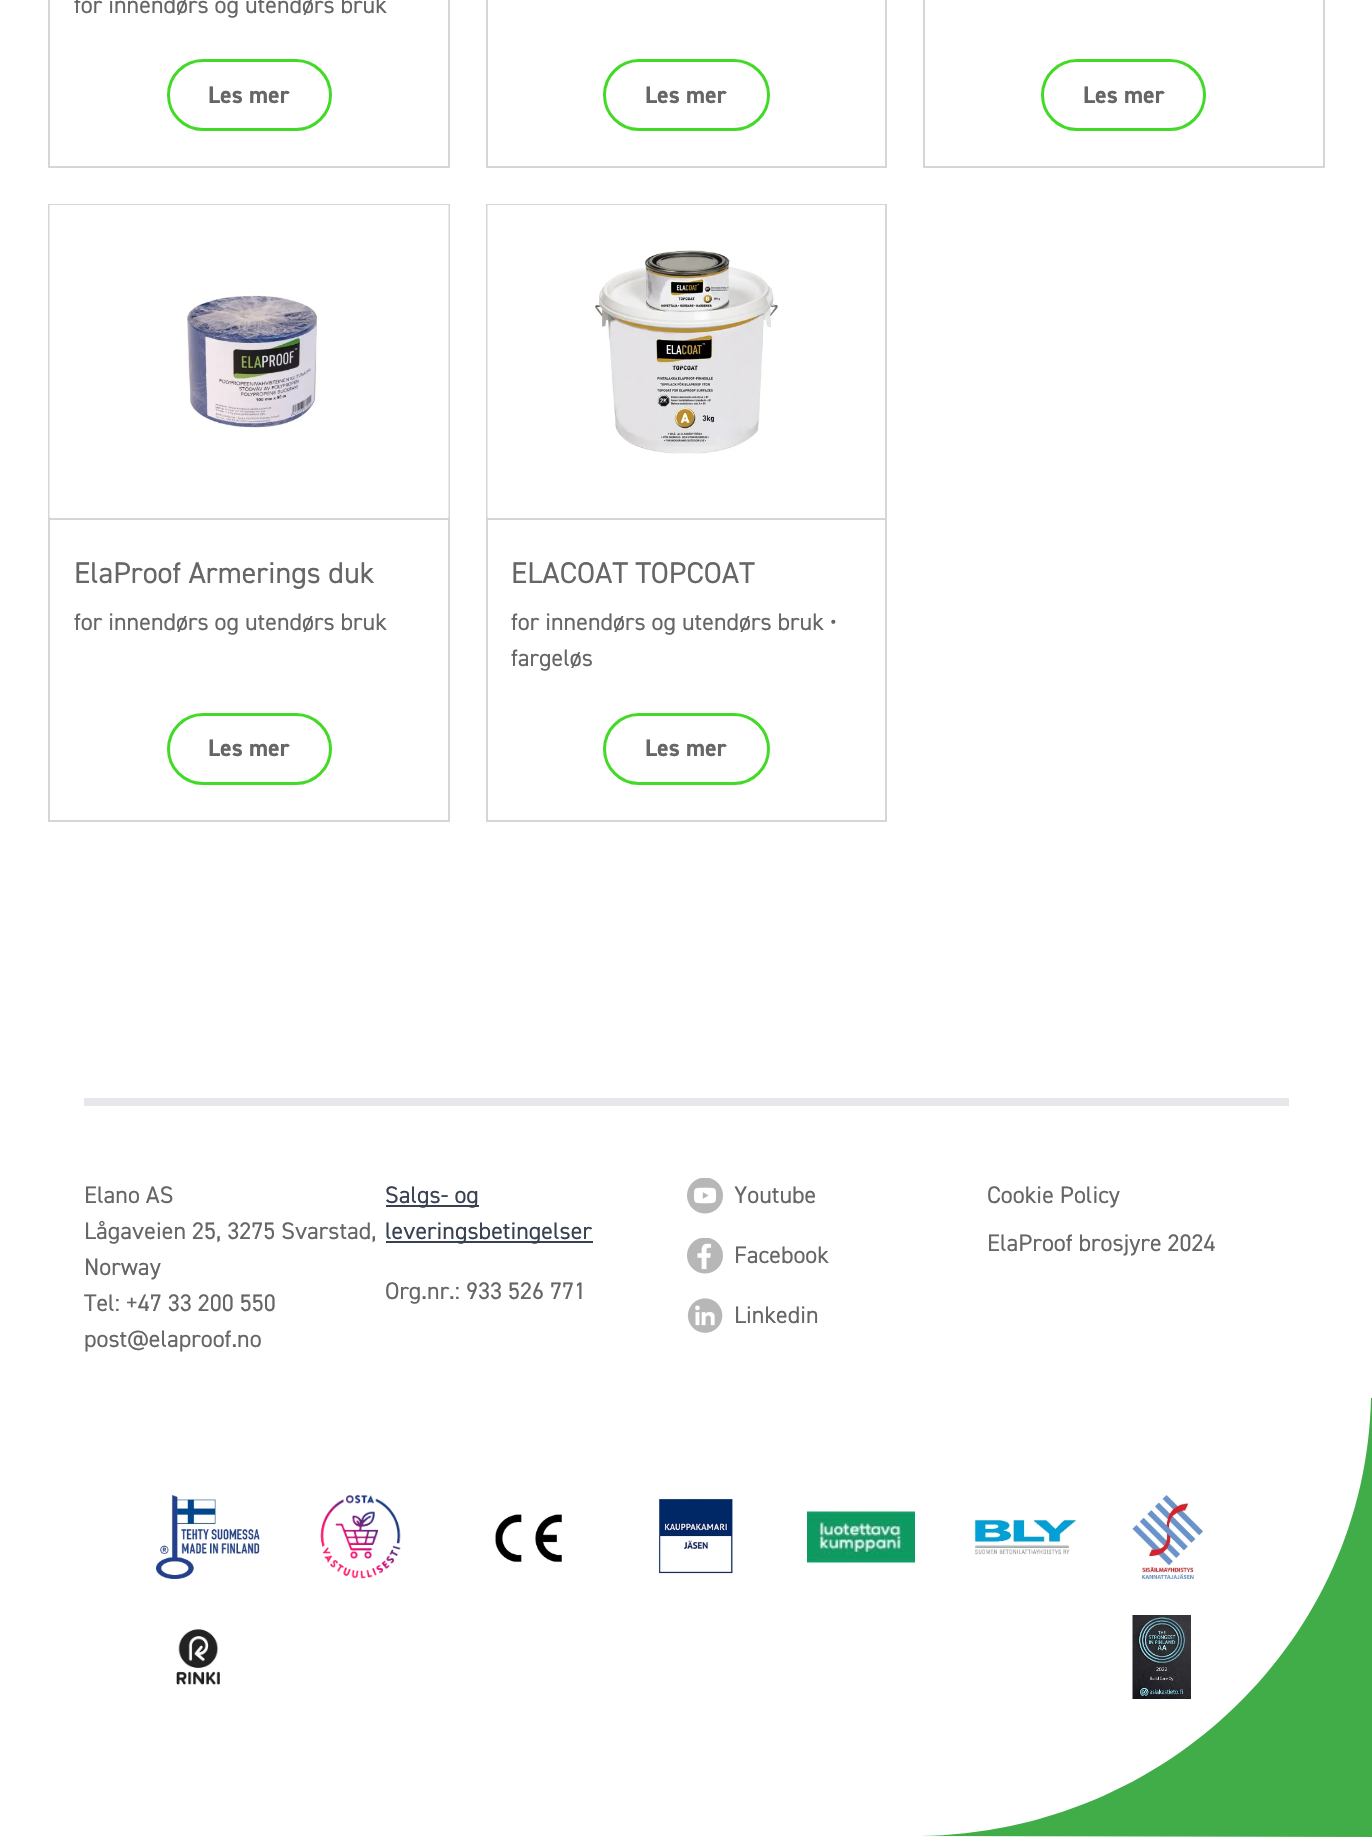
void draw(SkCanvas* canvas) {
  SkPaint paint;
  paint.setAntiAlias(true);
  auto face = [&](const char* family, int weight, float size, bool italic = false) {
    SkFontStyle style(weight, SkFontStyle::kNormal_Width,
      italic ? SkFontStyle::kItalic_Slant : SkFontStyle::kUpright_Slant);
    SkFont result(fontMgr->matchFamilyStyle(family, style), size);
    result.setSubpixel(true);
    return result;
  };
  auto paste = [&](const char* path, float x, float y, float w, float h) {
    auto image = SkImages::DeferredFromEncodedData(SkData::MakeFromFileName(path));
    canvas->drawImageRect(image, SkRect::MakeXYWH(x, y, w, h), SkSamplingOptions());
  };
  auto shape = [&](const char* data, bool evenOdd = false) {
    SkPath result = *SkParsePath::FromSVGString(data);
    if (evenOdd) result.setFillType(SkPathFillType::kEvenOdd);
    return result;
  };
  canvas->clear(0xffffffff);
  paint.setStroke(true);
  paint.setStrokeWidth(2);
  paint.setColor(0xffd6d6d6);
  canvas->drawRect(SkRect::MakeXYWH(49, -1, 400, 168), paint);
  paint.setStrokeWidth(3);
  paint.setColor(0xff42da26);
  canvas->drawRoundRect(SkRect::MakeXYWH(168.5f, 60.5f, 162, 69), 34.5f, 34.5f, paint);
  paint.setStrokeWidth(2);
  paint.setColor(0xffd6d6d6);
  canvas->drawRect(SkRect::MakeXYWH(487, -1, 399, 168), paint);
  paint.setStrokeWidth(3);
  paint.setColor(0xff42da26);
  canvas->drawRoundRect(SkRect::MakeXYWH(604.5f, 60.5f, 164, 69), 34.5f, 34.5f, paint);
  paint.setStrokeWidth(2);
  paint.setColor(0xffd6d6d6);
  canvas->drawRect(SkRect::MakeXYWH(924, -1, 400, 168), paint);
  paint.setStrokeWidth(3);
  paint.setColor(0xff42da26);
  canvas->drawRoundRect(SkRect::MakeXYWH(1042.5f, 60.5f, 162, 69), 34.5f, 34.5f, paint);
  paint.setStrokeWidth(2);
  paint.setColor(0xffd6d6d6);
  canvas->drawRect(SkRect::MakeXYWH(49, 205, 400, 616), paint);
  paint.setStroke(false);
  canvas->drawRect(SkRect::MakeXYWH(50, 518, 399, 2), paint);
  paste("img/1.png", 49, 205, 400, 312);
  paint.setStroke(true);
  paint.setStrokeWidth(3);
  paint.setColor(0xff42da26);
  canvas->drawRoundRect(SkRect::MakeXYWH(168.5f, 714.5f, 162, 69), 34.5f, 34.5f, paint);
  paint.setStrokeWidth(2);
  paint.setColor(0xffd6d6d6);
  canvas->drawRect(SkRect::MakeXYWH(487, 205, 399, 616), paint);
  paint.setStroke(false);
  canvas->drawRect(SkRect::MakeXYWH(488, 518, 397, 2), paint);
  paste("img/2.png", 487, 205, 398, 312);
  paint.setStroke(true);
  paint.setStrokeWidth(3);
  paint.setColor(0xff42da26);
  canvas->drawRoundRect(SkRect::MakeXYWH(604.5f, 714.5f, 164, 69), 34.5f, 34.5f, paint);
  paint.setStroke(false);
  {
    const struct { float x, y, w, h; SkColor color; } items[] = {
      {84, 1098, 1205, 8, 0xffe5e7eb},
      {386, 1205, 93, 2, 0xff374151},
      {386, 1241, 207, 2, 0xff374151},
    };
    for (auto [x, y, w, h, color] : items) {
      paint.setColor(color);
      canvas->drawRect(SkRect::MakeXYWH(x, y, w, h), paint);
    }
  }
  paste("img/3.png", 687, 1178, 36, 36);
  paste("img/4.png", 687, 1238, 36, 36);
  paste("img/5.png", 687, 1298, 36, 35);
  paste("img/11.png", 973, 1519, 104, 36);
  paste("img/12.png", 1132, 1495, 71, 84);
  paste("img/14.png", 1132, 1615, 59, 84);
  paint.setColor(0xff41ad49);
  canvas->drawPath(shape("M1372 1837V1398H1371C1366 1639 1166 1833 920 1836Z"), paint);
  paste("img/6.png", 156, 1495, 104, 84);
  paste("img/7.png", 320, 1495, 81, 84);
  paste("img/8.png", 495, 1514, 67, 49);
  paste("img/9.png", 658, 1498, 75, 76);
  paste("img/10.png", 807, 1511, 108, 52);
  paste("img/13.png", 176, 1629, 44, 56);
  auto f0 = face("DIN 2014", 400, 24);
  paint.setColor(0xff666666);
  canvas->drawString("for innendørs og utendørs bruk", 74, 13, f0, paint);
  auto f1 = face("DIN 2014", 700, 24);
  {
    const struct { const char* s; float x, y; } items[] = {
      {"Les mer", 208, 103},
      {"Les mer", 645, 103},
      {"Les mer", 1083, 103},
    };
    for (auto [s, x, y] : items) {
      canvas->drawString(s, x, y, f1, paint);
    }
  }
  auto f2 = face("DIN 2014", 400, 30);
  canvas->drawString("ElaProof Armerings duk", 74, 583, f2, paint);
  canvas->drawString("for innendørs og utendørs bruk", 74, 630, f0, paint);
  canvas->drawString("Les mer", 208, 756, f1, paint);
  canvas->drawString("ELACOAT TOPCOAT", 511, 583, f2, paint);
  canvas->drawString("for innendørs og utendørs bruk •", 511, 630, f0, paint);
  canvas->drawString("fargeløs", 511, 666, f0, paint);
  canvas->drawString("Les mer", 645, 756, f1, paint);
  {
    const struct { const char* s; float x, y; } items[] = {
      {"Elano AS", 84, 1203},
      {"Lågaveien 25, 3275 Svarstad,", 84, 1239},
      {"Norway", 84, 1275},
      {"Tel: +47 33 200 550", 84, 1311},
      {"post@elaproof.no", 84, 1347},
    };
    for (auto [s, x, y] : items) {
      canvas->drawString(s, x, y, f0, paint);
    }
  }
  paint.setColor(0xff374151);
  canvas->drawString("Salgs- og", 385, 1203, f0, paint);
  canvas->drawString("leveringsbetingelser", 385, 1239, f0, paint);
  paint.setColor(0xff666666);
  {
    const struct { const char* s; float x, y; } items[] = {
      {"Org.nr.: 933 526 771", 385, 1299},
      {"Youtube", 734, 1203},
      {"Facebook", 734, 1263},
      {"Linkedin", 734, 1323},
      {"Cookie Policy", 987, 1203},
      {"ElaProof brosjyre 2024", 987, 1251},
    };
    for (auto [s, x, y] : items) {
      canvas->drawString(s, x, y, f0, paint);
    }
  }
}
